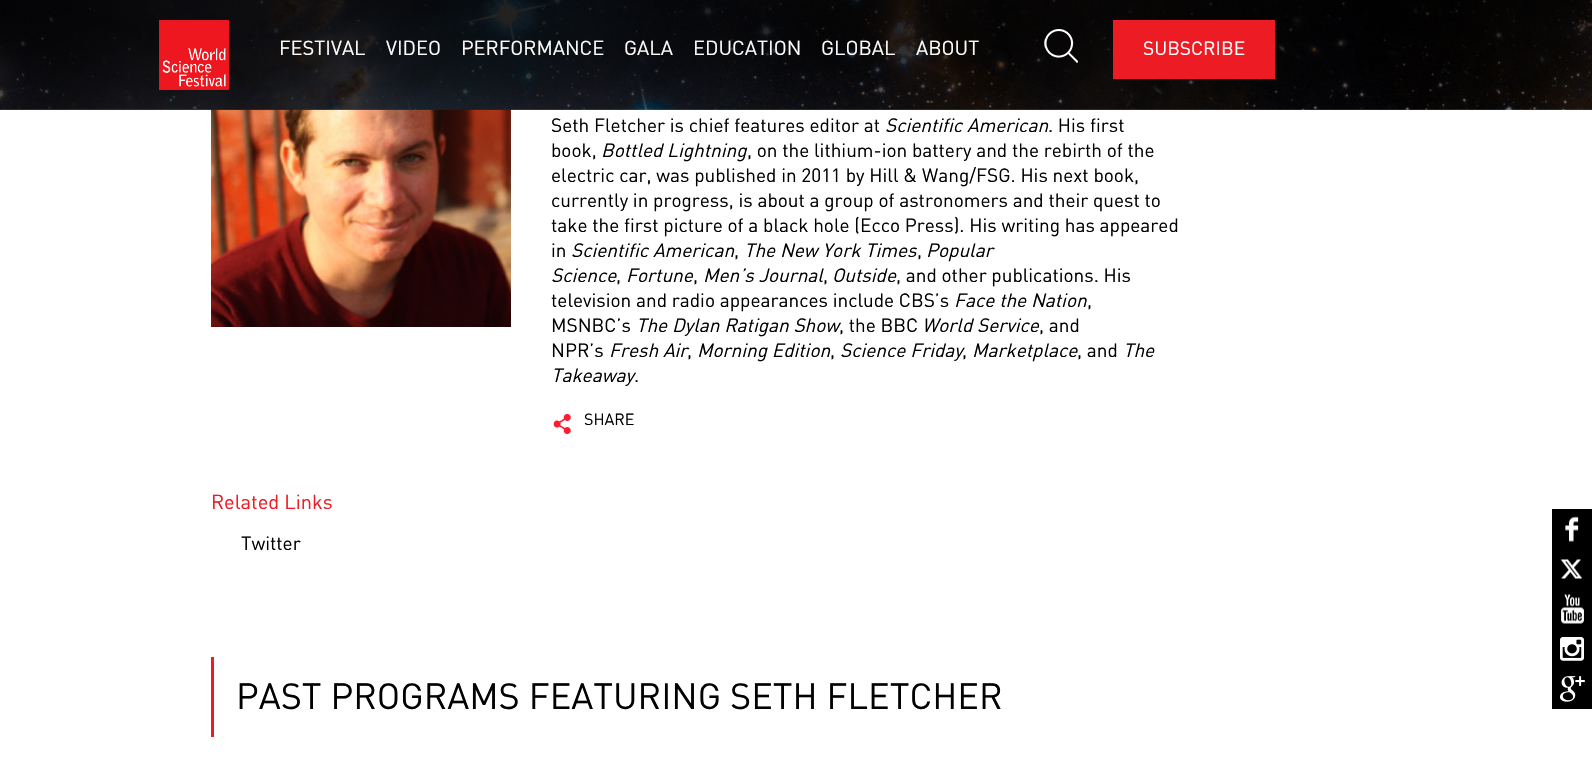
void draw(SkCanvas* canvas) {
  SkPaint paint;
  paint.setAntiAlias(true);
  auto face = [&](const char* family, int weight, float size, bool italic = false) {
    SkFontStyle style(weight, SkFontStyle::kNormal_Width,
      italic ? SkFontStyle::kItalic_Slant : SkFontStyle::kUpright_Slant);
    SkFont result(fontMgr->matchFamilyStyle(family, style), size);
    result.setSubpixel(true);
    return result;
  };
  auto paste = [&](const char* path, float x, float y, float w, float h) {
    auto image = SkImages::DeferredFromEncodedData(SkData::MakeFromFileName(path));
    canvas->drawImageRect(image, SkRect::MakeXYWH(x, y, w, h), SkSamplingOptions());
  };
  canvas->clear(0xffffffff);
  paste("img/4.png", 211, 109, 300, 218);
  paste("img/1.png", 0, 0, 1592, 110);
  paste("img/2.png", 159, 20, 70, 70);
  paste("img/3.png", 1044, 29, 34, 34);
  paint.setColor(0xffed1c24);
  canvas->drawRect(SkRect::MakeXYWH(1113, 20, 162, 59), paint);
  paste("img/5.png", 553, 414, 18, 20);
  canvas->drawRect(SkRect::MakeXYWH(211, 657, 3, 80), paint);
  paint.setColor(0xff000000);
  canvas->drawRect(SkRect::MakeXYWH(1552, 509, 40, 200), paint);
  paste("img/6.png", 1565, 516, 14, 26);
  paste("img/7.png", 1561, 559, 21, 20);
  paste("img/8.png", 1561, 594, 23, 30);
  paste("img/9.png", 1560, 637, 24, 24);
  paste("img/10.png", 1560, 676, 25, 26);
  auto f0 = face("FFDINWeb", 400, 20);
  paint.setColor(0xffffffff);
  {
    const struct { const char* s; float x, y; } items[] = {
      {"FESTIVAL", 279, 55},
      {"VIDEO", 386, 55},
      {"PERFORMANCE", 461, 55},
      {"GALA", 624, 55},
      {"EDUCATION", 693, 55},
      {"GLOBAL", 821, 55},
      {"ABOUT", 916, 55},
    };
    for (auto [s, x, y] : items) {
      canvas->drawString(s, x, y, f0, paint);
    }
  }
  auto f1 = face("FFDINWeb", 400, 19);
  canvas->drawString("SUBSCRIBE", 1143, 55, f1, paint);
  paint.setColor(0xff000000);
  canvas->drawString("Seth Fletcher is chief features editor at", 551, 132, f1, paint);
  auto f2 = face("FFDINWeb", 400, 19, true);
  canvas->drawString("Scientific American", 885, 132, f2, paint);
  canvas->drawString(". His first", 1048, 132, f1, paint);
  canvas->drawString("book,", 551, 157, f1, paint);
  canvas->drawString("Bottled Lightning", 601, 157, f2, paint);
  {
    const struct { const char* s; float x, y; } items[] = {
      {", on the lithium-ion battery and the rebirth of the", 747, 157},
      {"electric car, was published in 2011 by Hill & Wang/FSG. His next book,", 551, 182},
      {"currently in progress, is about a group of astronomers and their quest to", 551, 207},
      {"take the first picture of a black hole (Ecco Press). His writing has appeared", 551, 232},
      {"in", 551, 257},
    };
    for (auto [s, x, y] : items) {
      canvas->drawString(s, x, y, f1, paint);
    }
  }
  canvas->drawString("Scientific American", 571, 257, f2, paint);
  canvas->drawString(",", 734, 257, f1, paint);
  canvas->drawString("The New York Times", 744, 257, f2, paint);
  canvas->drawString(",", 917, 257, f1, paint);
  canvas->drawString("Popular", 926, 257, f2, paint);
  canvas->drawString("Science", 551, 282, f2, paint);
  canvas->drawString(",", 616, 282, f1, paint);
  canvas->drawString("Fortune", 626, 282, f2, paint);
  canvas->drawString(",", 693, 282, f1, paint);
  canvas->drawString("Men’s Journal", 703, 282, f2, paint);
  canvas->drawString(",", 823, 282, f1, paint);
  canvas->drawString("Outside", 832, 282, f2, paint);
  canvas->drawString(", and other publications. His", 896, 282, f1, paint);
  canvas->drawString("television and radio appearances include CBS’s", 551, 307, f1, paint);
  canvas->drawString("Face the Nation", 954, 307, f2, paint);
  canvas->drawString(",", 1087, 307, f1, paint);
  canvas->drawString("MSNBC’s", 551, 332, f1, paint);
  canvas->drawString("The Dylan Ratigan Show", 636, 332, f2, paint);
  canvas->drawString(", the BBC", 839, 332, f1, paint);
  canvas->drawString("World Service", 922, 332, f2, paint);
  canvas->drawString(", and", 1039, 332, f1, paint);
  canvas->drawString("NPR’s", 551, 357, f1, paint);
  canvas->drawString("Fresh Air", 609, 357, f2, paint);
  canvas->drawString(",", 687, 357, f1, paint);
  canvas->drawString("Morning Edition", 697, 357, f2, paint);
  canvas->drawString(",", 830, 357, f1, paint);
  canvas->drawString("Science Friday", 840, 357, f2, paint);
  canvas->drawString("Marketplace", 972, 357, f2, paint);
  canvas->drawString(", and", 1077, 357, f1, paint);
  canvas->drawString("The", 1123, 357, f2, paint);
  canvas->drawString(",", 962, 357, f1, paint);
  canvas->drawString("Takeaway", 551, 382, f2, paint);
  canvas->drawString(".", 634, 382, f1, paint);
  auto f3 = face("FFDINWeb", 400, 16);
  canvas->drawString("SHARE", 584, 425, f3, paint);
  paint.setColor(0xffed1c24);
  canvas->drawString("Related Links", 211, 509, f0, paint);
  paint.setColor(0xff000000);
  canvas->drawString("Twitter", 241, 550, f1, paint);
  auto f4 = face("FFDINWeb", 400, 36);
  canvas->drawString("PAST PROGRAMS FEATURING SETH FLETCHER", 236, 709, f4, paint);
}
